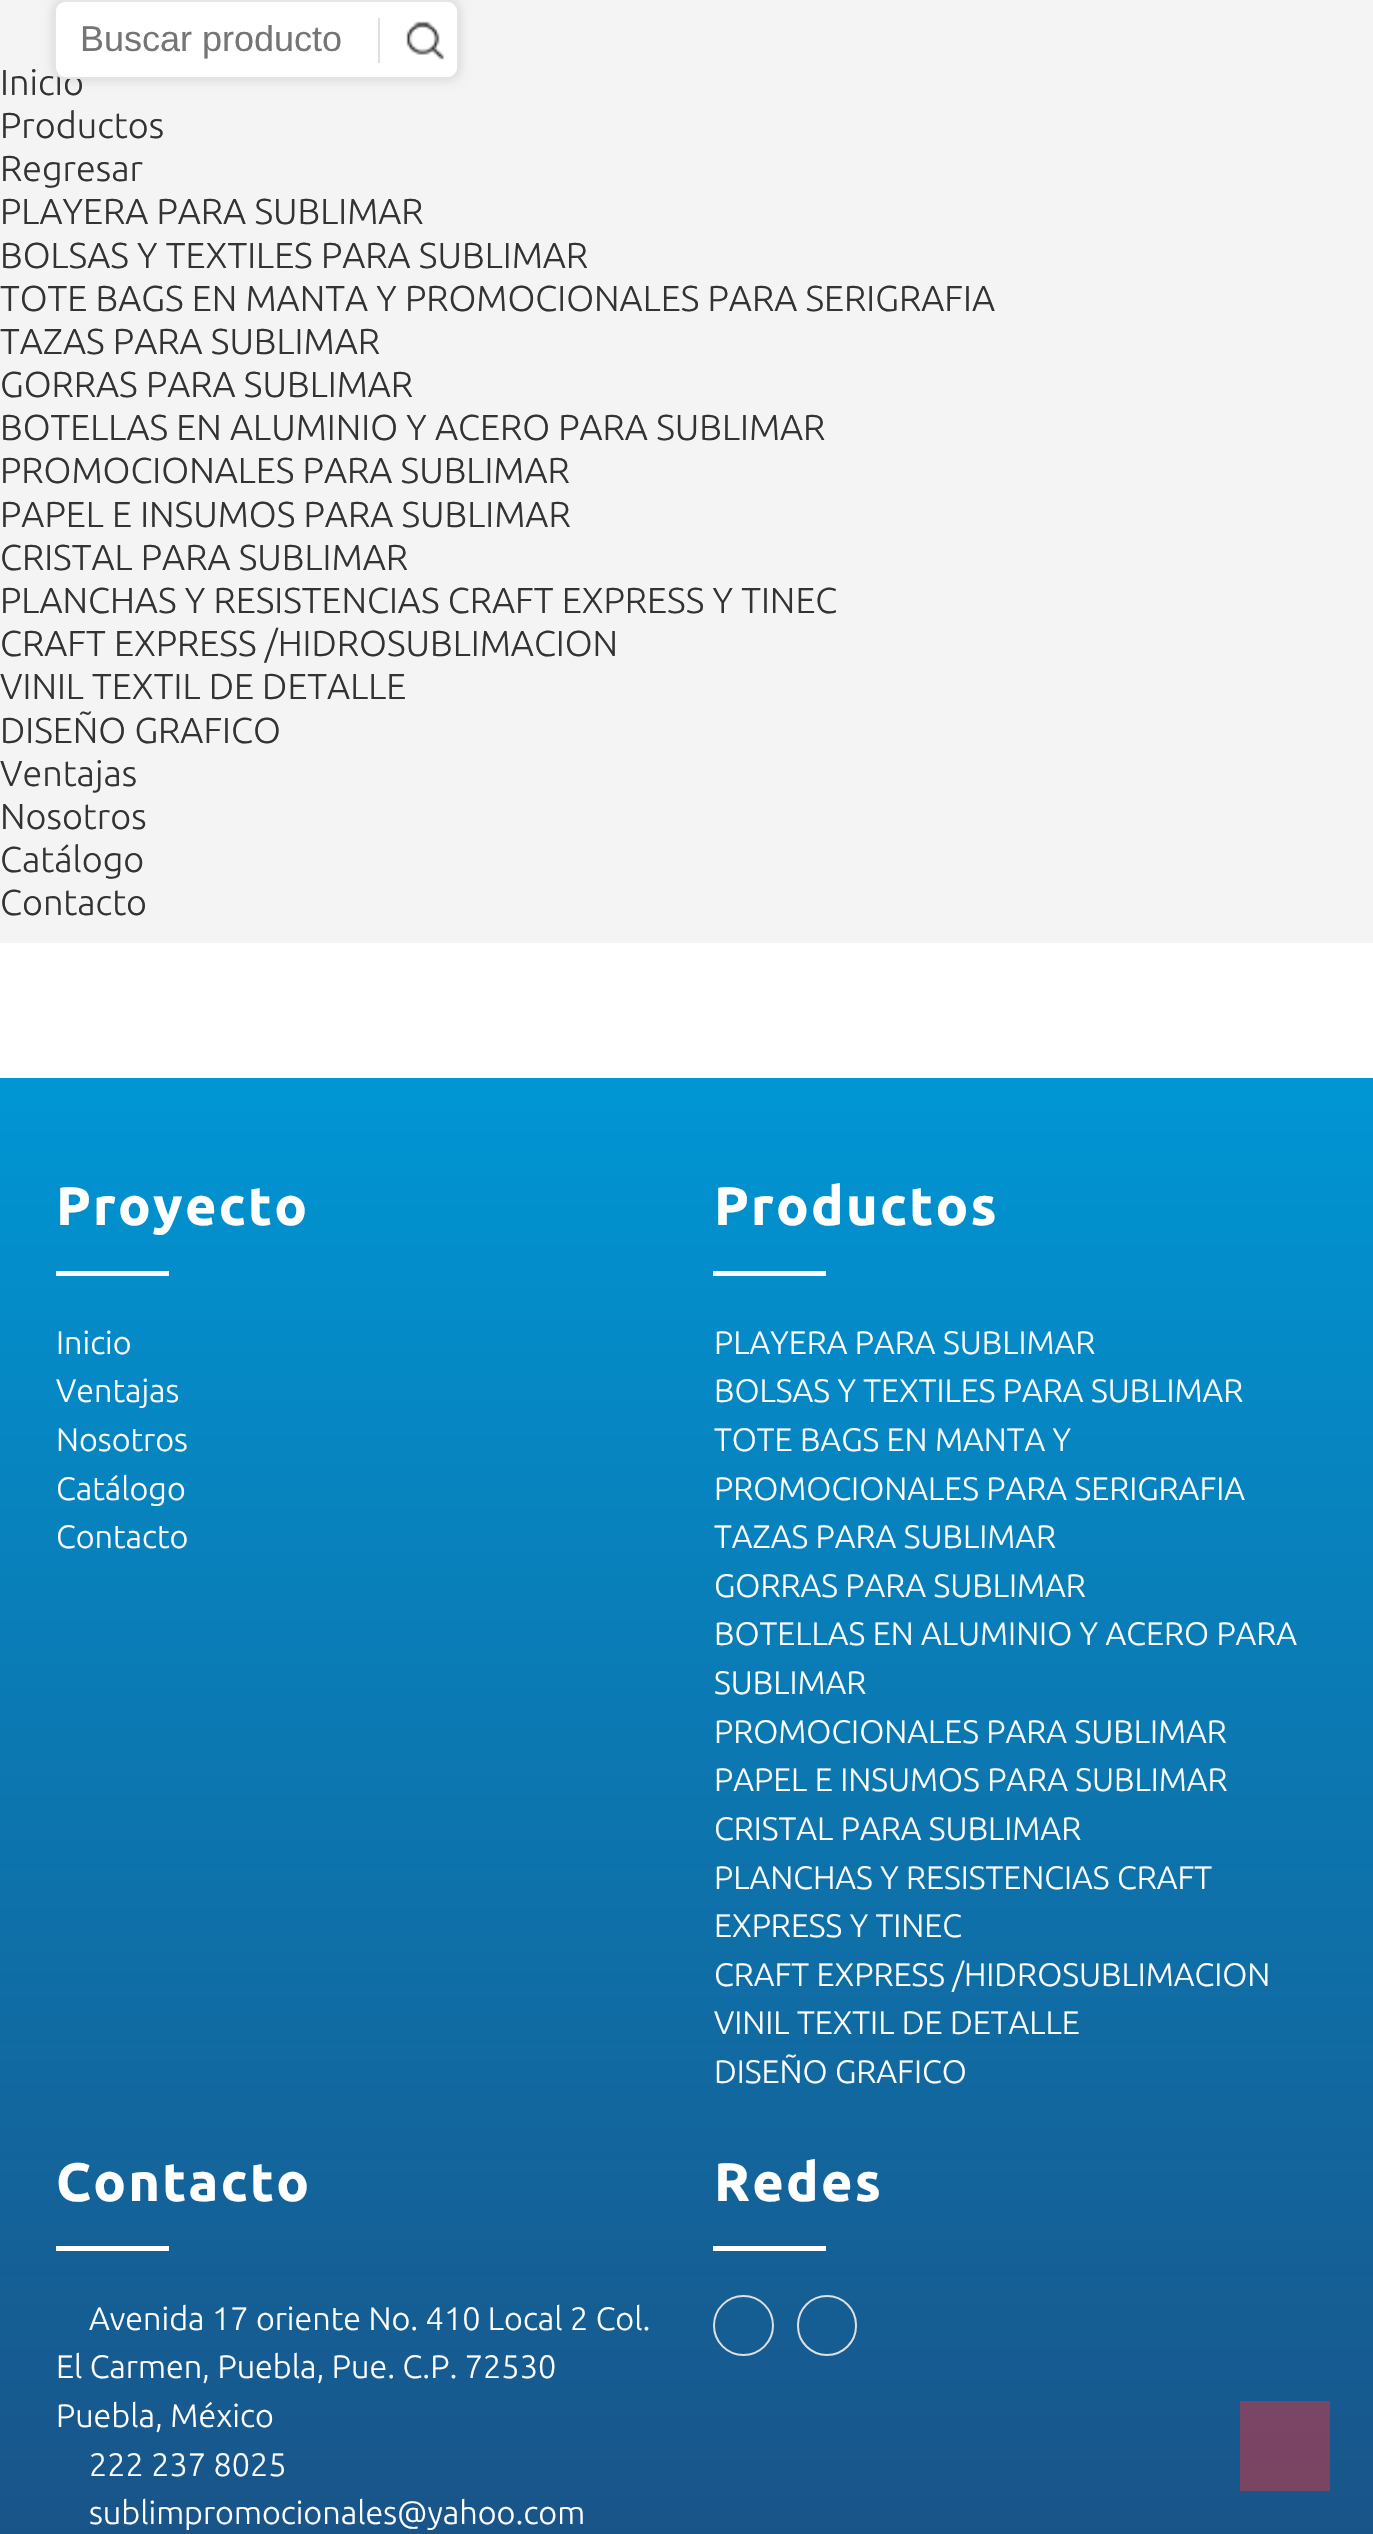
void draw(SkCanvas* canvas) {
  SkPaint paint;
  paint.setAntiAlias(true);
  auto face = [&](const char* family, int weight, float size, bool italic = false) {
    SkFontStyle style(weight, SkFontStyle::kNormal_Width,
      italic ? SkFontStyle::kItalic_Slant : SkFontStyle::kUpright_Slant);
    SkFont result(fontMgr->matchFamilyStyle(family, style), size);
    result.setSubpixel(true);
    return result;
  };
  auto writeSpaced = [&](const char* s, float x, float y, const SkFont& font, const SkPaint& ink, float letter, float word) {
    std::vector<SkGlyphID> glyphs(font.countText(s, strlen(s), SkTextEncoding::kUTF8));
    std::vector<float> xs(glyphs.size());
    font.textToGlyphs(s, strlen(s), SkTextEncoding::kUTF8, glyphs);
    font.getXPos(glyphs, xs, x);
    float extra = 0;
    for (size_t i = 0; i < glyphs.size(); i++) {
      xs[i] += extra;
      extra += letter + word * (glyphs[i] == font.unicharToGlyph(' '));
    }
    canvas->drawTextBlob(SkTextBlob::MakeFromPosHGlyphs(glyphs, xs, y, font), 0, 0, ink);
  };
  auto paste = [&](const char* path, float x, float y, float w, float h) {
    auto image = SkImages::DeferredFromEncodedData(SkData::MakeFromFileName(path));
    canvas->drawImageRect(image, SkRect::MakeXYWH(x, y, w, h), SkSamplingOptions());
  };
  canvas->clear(0xffffffff);
  paint.setColor(0xfff4f4f4);
  canvas->drawRect(SkRect::MakeXYWH(0, 0, 1373, 943), paint);
  paint.setColor(0x26000000);
  paint.setMaskFilter(SkMaskFilter::MakeBlur(kNormal_SkBlurStyle, 5.5f));
  canvas->drawRoundRect(SkRect::MakeXYWH(54, 0, 405, 79), 11, 11, paint);
  paint.setMaskFilter(nullptr);
  {
    const SkColor colors[] = {0xff0096d4, 0xff223c6d};
    const float stops[] = {0, 1};
    const SkPoint ends[] = {{687, 1078}, {687, 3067}};
    paint.setShader(SkGradientShader::MakeLinear(ends, colors, stops, 2, SkTileMode::kClamp));
    paint.setAlpha(255);
  }
  canvas->drawRect(SkRect::MakeXYWH(0, 1078, 1373, 1456), paint);
  {
    const SkColor colors[] = {0xff6e6487, 0xff7f3754};
    const float stops[] = {0, 1};
    const SkPoint ends[] = {{687, 1078}, {687, 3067}};
    paint.setShader(SkGradientShader::MakeLinear(ends, colors, stops, 2, SkTileMode::kClamp));
    paint.setAlpha(255);
  }
  canvas->drawRect(SkRect::MakeXYWH(1240, 2401, 90, 90), paint);
  paint.setShader(nullptr);
  {
    const struct { float x, y, w, h; SkColor color; } items[] = {
      {56, 1271, 113, 5, 0xffffffff},
      {713, 1271, 113, 5, 0xffffffff},
      {56, 2246, 113, 5, 0xffffffff},
      {713, 2246, 113, 5, 0xffffffff},
    };
    for (auto [x, y, w, h, color] : items) {
      paint.setColor(color);
      canvas->drawRect(SkRect::MakeXYWH(x, y, w, h), paint);
    }
  }
  paint.setStroke(true);
  paint.setStrokeWidth(2);
  paint.setColor(0xffe0e0e0);
  canvas->drawCircle(743.5f, 2325.5f, 29.5f, paint);
  canvas->drawRoundRect(SkRect::MakeXYWH(798, 2296, 58, 59), 29, 29, paint);
  auto f0 = face("Ubuntu", 300, 36);
  paint.setStroke(false);
  paint.setColor(0xff333333);
  canvas->drawString("Inicio", 0, 95, f0, paint);
  paint.setColor(0xffffffff);
  canvas->drawRoundRect(SkRect::MakeXYWH(54, 0, 405, 79), 11, 11, paint);
  paint.setStroke(true);
  paint.setColor(0x1a000000);
  canvas->drawRoundRect(SkRect::MakeXYWH(55, 1, 403, 77), 10, 10, paint);
  paste("img/1.png", 406, 21, 38, 39);
  paint.setStroke(false);
  paint.setColor(0xffe0e0e0);
  canvas->drawRect(SkRect::MakeXYWH(378, 18, 2, 45), paint);
  auto f1 = face("Liberation Sans", 400, 36);
  paint.setColor(0xff757575);
  canvas->drawString("Buscar producto", 80, 51, f1, paint);
  paint.setColor(0xff333333);
  {
    const struct { const char* s; float x, y; } items[] = {
      {"Productos", 0, 138},
      {"Regresar", 0, 181},
      {"PLAYERA PARA SUBLIMAR", 0, 224},
      {"BOLSAS Y TEXTILES PARA SUBLIMAR", 0, 268},
      {"TOTE BAGS EN MANTA Y PROMOCIONALES PARA SERIGRAFIA", 0, 311},
      {"TAZAS PARA SUBLIMAR", 0, 354},
      {"GORRAS PARA SUBLIMAR", 0, 397},
      {"BOTELLAS EN ALUMINIO Y ACERO PARA SUBLIMAR", 0, 440},
      {"PROMOCIONALES PARA SUBLIMAR", 0, 483},
      {"PAPEL E INSUMOS PARA SUBLIMAR", 0, 527},
      {"CRISTAL PARA SUBLIMAR", 0, 570},
      {"PLANCHAS Y RESISTENCIAS CRAFT EXPRESS Y TINEC", 0, 613},
      {"CRAFT EXPRESS /HIDROSUBLIMACION", 0, 656},
      {"VINIL TEXTIL DE DETALLE", 0, 699},
      {"DISEÑO GRAFICO", 0, 743},
      {"Ventajas", 0, 786},
      {"Nosotros", 0, 829},
      {"Catálogo", 0, 872},
      {"Contacto", 0, 915},
    };
    for (auto [s, x, y] : items) {
      canvas->drawString(s, x, y, f0, paint);
    }
  }
  auto f2 = face("Ubuntu", 700, 54);
  paint.setColor(0xffffffff);
  writeSpaced("Proyecto", 56, 1225, f2, paint, 2.25f, 0);
  auto f3 = face("Ubuntu", 300, 32.4f);
  {
    const struct { const char* s; float x, y; } items[] = {
      {"Inicio", 56, 1354},
      {"Ventajas", 56, 1402},
      {"Nosotros", 56, 1451},
      {"Catálogo", 56, 1500},
      {"Contacto", 56, 1548},
    };
    for (auto [s, x, y] : items) {
      canvas->drawString(s, x, y, f3, paint);
    }
  }
  writeSpaced("Productos", 714, 1225, f2, paint, 2.25f, 0);
  {
    const struct { const char* s; float x, y; } items[] = {
      {"PLAYERA PARA SUBLIMAR", 714, 1354},
      {"BOLSAS Y TEXTILES PARA SUBLIMAR", 714, 1402},
      {"TOTE BAGS EN MANTA Y", 714, 1451},
      {"PROMOCIONALES PARA SERIGRAFIA", 714, 1500},
      {"TAZAS PARA SUBLIMAR", 714, 1548},
      {"GORRAS PARA SUBLIMAR", 714, 1597},
      {"BOTELLAS EN ALUMINIO Y ACERO PARA", 714, 1645},
      {"SUBLIMAR", 714, 1694},
      {"PROMOCIONALES PARA SUBLIMAR", 714, 1743},
      {"PAPEL E INSUMOS PARA SUBLIMAR", 714, 1791},
      {"CRISTAL PARA SUBLIMAR", 714, 1840},
      {"PLANCHAS Y RESISTENCIAS CRAFT", 714, 1889},
      {"EXPRESS Y TINEC", 714, 1937},
      {"CRAFT EXPRESS /HIDROSUBLIMACION", 714, 1986},
      {"VINIL TEXTIL DE DETALLE", 714, 2034},
      {"DISEÑO GRAFICO", 714, 2083},
    };
    for (auto [s, x, y] : items) {
      canvas->drawString(s, x, y, f3, paint);
    }
  }
  writeSpaced("Contacto", 56, 2201, f2, paint, 2.25f, 0);
  {
    const struct { const char* s; float x, y; } items[] = {
      {"Avenida 17 oriente No. 410 Local 2 Col.", 89, 2330},
      {"El Carmen, Puebla, Pue. C.P. 72530", 56, 2378},
      {"Puebla, México", 56, 2427},
      {"222 237 8025", 89, 2476},
      {"sublimpromocionales@yahoo.com", 89, 2524},
    };
    for (auto [s, x, y] : items) {
      canvas->drawString(s, x, y, f3, paint);
    }
  }
  writeSpaced("Redes", 714, 2201, f2, paint, 2.25f, 0);
}
